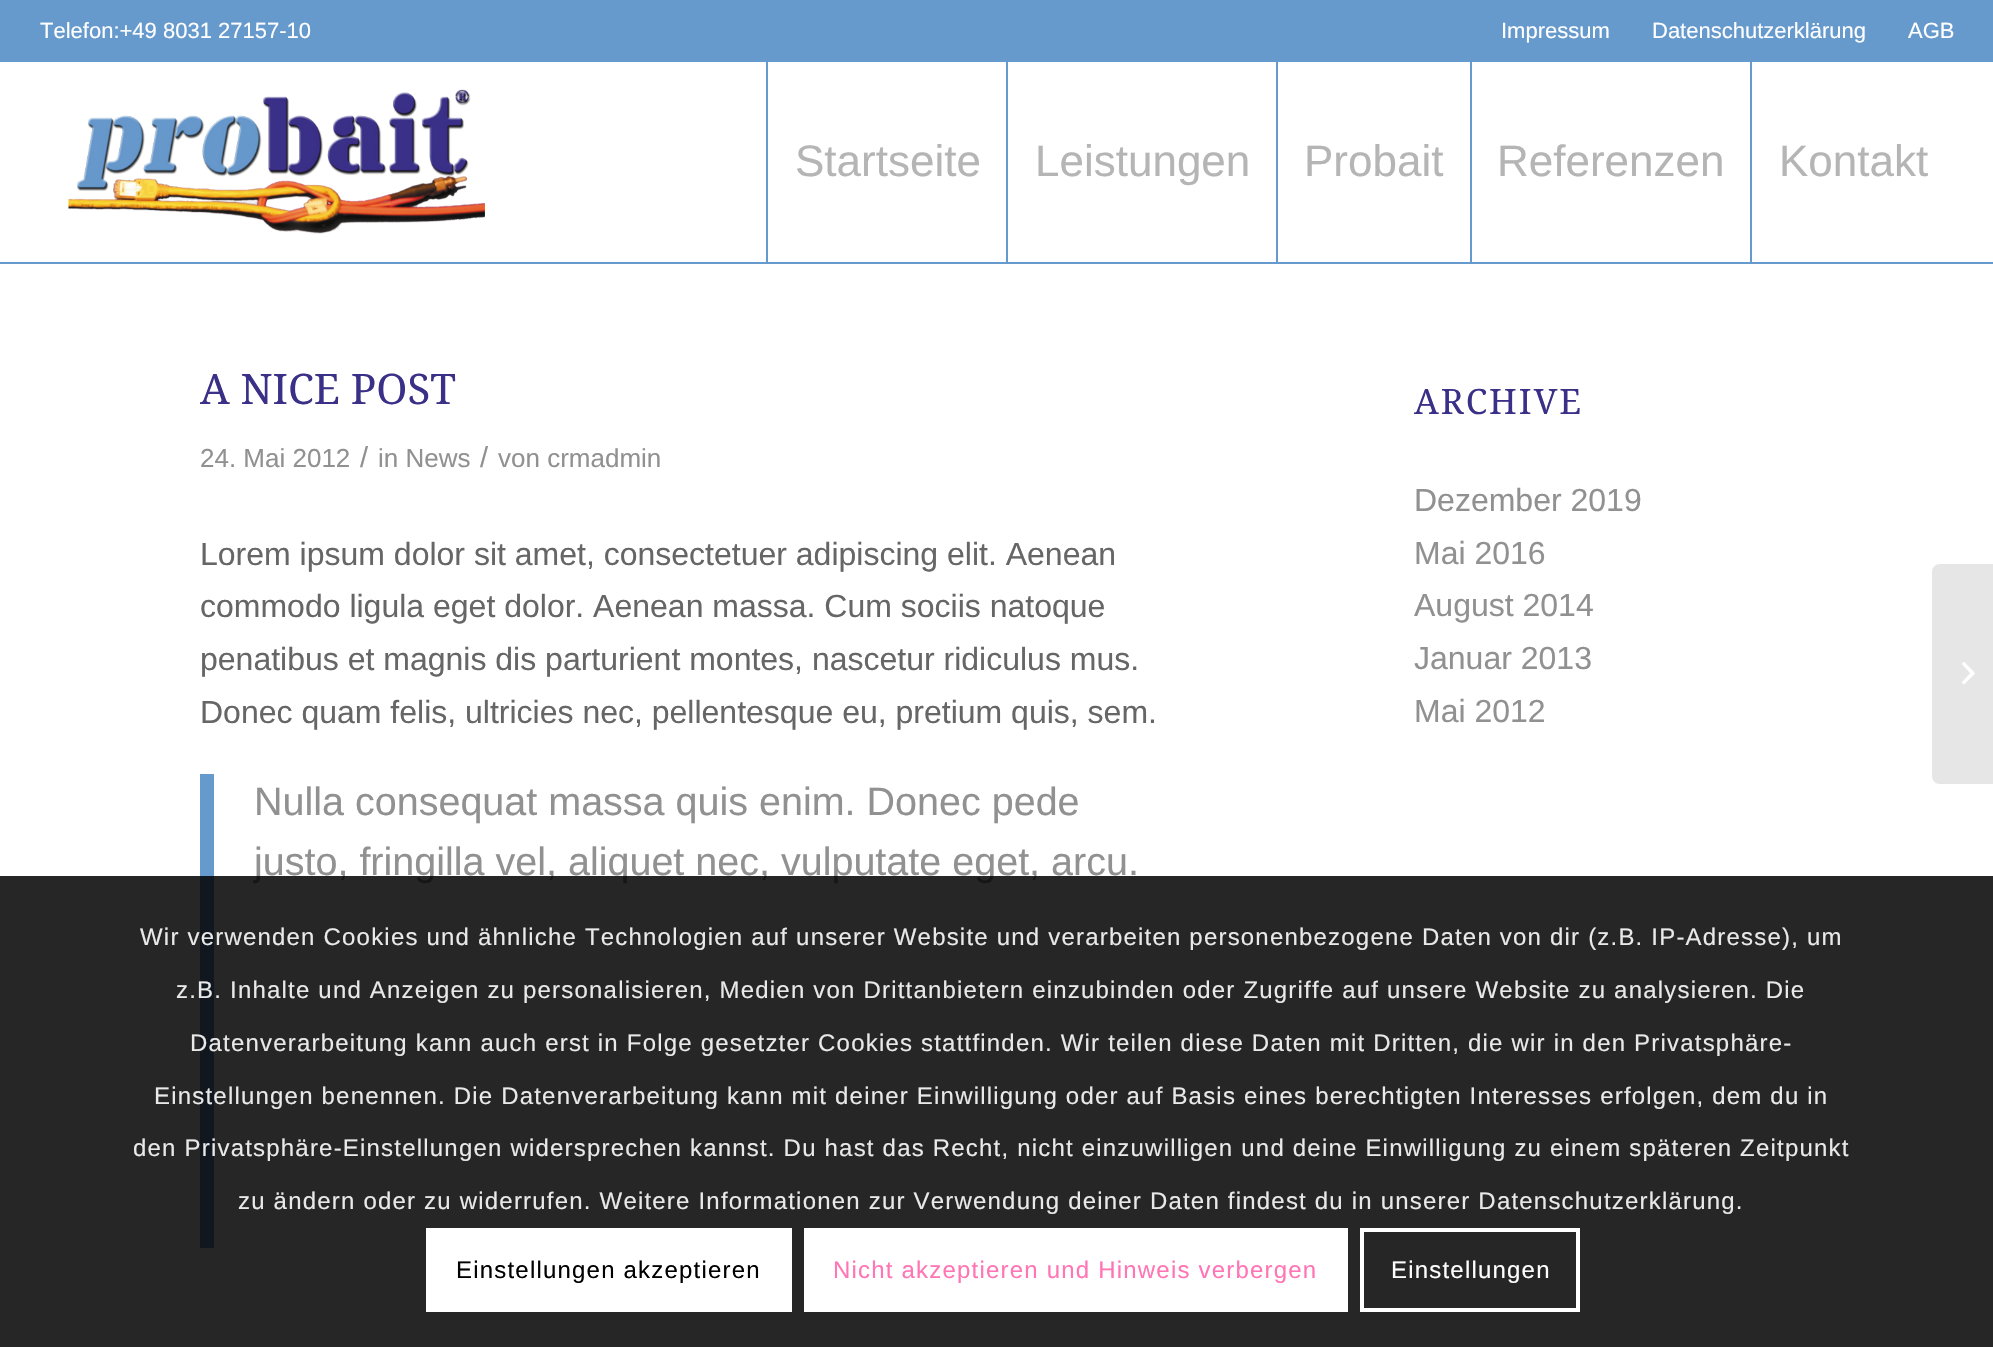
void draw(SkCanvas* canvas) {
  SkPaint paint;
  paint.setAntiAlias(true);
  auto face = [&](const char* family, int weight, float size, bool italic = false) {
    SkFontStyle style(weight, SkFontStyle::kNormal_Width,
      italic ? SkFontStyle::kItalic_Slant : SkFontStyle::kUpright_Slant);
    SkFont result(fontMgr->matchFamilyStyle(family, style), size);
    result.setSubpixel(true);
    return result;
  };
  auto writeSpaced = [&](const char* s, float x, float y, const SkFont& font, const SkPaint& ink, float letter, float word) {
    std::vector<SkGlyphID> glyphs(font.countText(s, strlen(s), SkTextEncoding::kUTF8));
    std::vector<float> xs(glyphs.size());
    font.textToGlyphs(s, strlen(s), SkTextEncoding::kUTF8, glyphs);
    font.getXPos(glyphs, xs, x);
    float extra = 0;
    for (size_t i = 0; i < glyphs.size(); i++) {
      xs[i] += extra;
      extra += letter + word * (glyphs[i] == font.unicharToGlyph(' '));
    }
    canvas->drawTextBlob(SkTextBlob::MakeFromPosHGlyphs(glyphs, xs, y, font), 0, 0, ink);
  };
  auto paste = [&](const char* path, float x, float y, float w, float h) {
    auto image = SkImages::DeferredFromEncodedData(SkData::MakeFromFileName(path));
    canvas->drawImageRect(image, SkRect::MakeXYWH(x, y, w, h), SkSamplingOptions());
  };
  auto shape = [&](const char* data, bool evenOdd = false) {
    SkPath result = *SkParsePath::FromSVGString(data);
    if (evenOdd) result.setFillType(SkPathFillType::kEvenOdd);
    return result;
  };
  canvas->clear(0xffffffff);
  paint.setColor(0xff679acc);
  canvas->drawRect(SkRect::MakeXYWH(0, 0, 1993, 62), paint);
  canvas->drawRect(SkRect::MakeXYWH(0, 262, 1993, 2), paint);
  paste("img/1.png", 68, 89, 417, 145);
  {
    const struct { float x, y, w, h; SkColor color; } items[] = {
      {766, 62, 2, 200, 0xff679acc},
      {1006, 62, 2, 200, 0xff679acc},
      {1276, 62, 2, 200, 0xff679acc},
      {1470, 62, 2, 200, 0xff679acc},
      {1750, 62, 2, 200, 0xff679acc},
      {200, 774, 14, 474, 0xff679acc},
    };
    for (auto [x, y, w, h, color] : items) {
      paint.setColor(color);
      canvas->drawRect(SkRect::MakeXYWH(x, y, w, h), paint);
    }
  }
  paint.setColor(0xffe6e6e6);
  canvas->drawPath(shape("M1940 564H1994V784H1940C1935.5 784 1932 780.5 1932 776V572C1932 567.5 1935.5 564 1940 564Z"), paint);
  paste("img/2.png", 1962, 662, 13, 23);
  auto f0 = face("Liberation Sans", 400, 22);
  paint.setColor(0xffffffff);
  {
    const struct { const char* s; float x, y; } items[] = {
      {"Telefon:+49 8031 27157-10", 40, 38},
      {"Impressum", 1501, 38},
      {"Datenschutzerklärung", 1652, 38},
      {"AGB", 1908, 38},
    };
    for (auto [s, x, y] : items) {
      canvas->drawString(s, x, y, f0, paint);
    }
  }
  auto f1 = face("Liberation Sans", 400, 44);
  paint.setColor(0xffb5b5b5);
  {
    const struct { const char* s; float x, y; } items[] = {
      {"Startseite", 795, 176},
      {"Leistungen", 1035, 176},
      {"Probait", 1304, 176},
      {"Referenzen", 1497, 176},
      {"Kontakt", 1779, 176},
    };
    for (auto [s, x, y] : items) {
      canvas->drawString(s, x, y, f1, paint);
    }
  }
  auto f2 = face("Droid Serif", 400, 42);
  paint.setColor(0xff3a3087);
  canvas->drawString("A NICE POST", 200, 404, f2, paint);
  auto f3 = face("Liberation Sans", 400, 26);
  paint.setColor(0xff919191);
  canvas->drawString("24. Mai 2012", 200, 467, f3, paint);
  auto f4 = face("Liberation Sans", 400, 29);
  canvas->drawString("/", 360, 467, f4, paint);
  canvas->drawString("in News", 378, 467, f3, paint);
  canvas->drawString("/", 480, 467, f4, paint);
  canvas->drawString("von crmadmin", 498, 467, f3, paint);
  auto f5 = face("Liberation Sans", 400, 32);
  paint.setColor(0xff666666);
  {
    const struct { const char* s; float x, y; } items[] = {
      {"Lorem ipsum dolor sit amet, consectetuer adipiscing elit. Aenean", 200, 565},
      {"commodo ligula eget dolor. Aenean massa. Cum sociis natoque", 200, 617},
      {"penatibus et magnis dis parturient montes, nascetur ridiculus mus.", 200, 670},
      {"Donec quam felis, ultricies nec, pellentesque eu, pretium quis, sem.", 200, 723},
    };
    for (auto [s, x, y] : items) {
      canvas->drawString(s, x, y, f5, paint);
    }
  }
  auto f6 = face("Liberation Sans", 400, 39.5f);
  paint.setColor(0xff919191);
  canvas->drawString("Nulla consequat massa quis enim. Donec pede", 254, 815, f6, paint);
  canvas->drawString("justo, fringilla vel, aliquet nec, vulputate eget, arcu.", 254, 875, f6, paint);
  auto f7 = face("Droid Serif", 400, 35);
  paint.setColor(0xff3a3087);
  writeSpaced("ARCHIVE", 1414, 414, f7, paint, 2, 0);
  paint.setColor(0xff919191);
  {
    const struct { const char* s; float x, y; } items[] = {
      {"Dezember 2019", 1414, 511},
      {"Mai 2016", 1414, 564},
      {"August 2014", 1414, 616},
      {"Januar 2013", 1414, 669},
      {"Mai 2012", 1414, 722},
    };
    for (auto [s, x, y] : items) {
      canvas->drawString(s, x, y, f5, paint);
    }
  }
  paint.setColor(0xd9000000);
  canvas->drawRect(SkRect::MakeXYWH(0, 876, 1993, 471), paint);
  auto f8 = face("Liberation Sans", 400, 24);
  paint.setColor(0xffe9e9e9);
  {
    const struct { const char* s; float x, y; } items[] = {
      {"Wir verwenden Cookies und ähnliche Technologien auf unserer Website und verarbeiten personenbezogene Daten von dir (z.B. IP-Adresse), um", 140, 945},
      {"z.B. Inhalte und Anzeigen zu personalisieren, Medien von Drittanbietern einzubinden oder Zugriffe auf unsere Website zu analysieren. Die", 176, 998},
      {"Datenverarbeitung kann auch erst in Folge gesetzter Cookies stattfinden. Wir teilen diese Daten mit Dritten, die wir in den Privatsphäre-", 190, 1051},
      {"Einstellungen benennen. Die Datenverarbeitung kann mit deiner Einwilligung oder auf Basis eines berechtigten Interesses erfolgen, dem du in", 154, 1104},
      {"den Privatsphäre-Einstellungen widersprechen kannst. Du hast das Recht, nicht einzuwilligen und deine Einwilligung zu einem späteren Zeitpunkt", 133, 1156},
      {"zu ändern oder zu widerrufen. Weitere Informationen zur Verwendung deiner Daten findest du in unserer Datenschutzerklärung.", 238, 1209},
    };
    for (auto [s, x, y] : items) {
      writeSpaced(s, x, y, f8, paint, 1.2f, 0);
    }
  }
  paint.setColor(0xffffffff);
  canvas->drawRect(SkRect::MakeXYWH(426, 1228, 366, 84), paint);
  paint.setColor(0xff000000);
  writeSpaced("Einstellungen akzeptieren", 456, 1278, f8, paint, 1.2f, 0);
  paint.setColor(0xffffffff);
  canvas->drawRect(SkRect::MakeXYWH(804, 1228, 544, 84), paint);
  paint.setColor(0xffff75b5);
  writeSpaced("Nicht akzeptieren und Hinweis verbergen", 833, 1278, f8, paint, 1.2f, 0);
  paint.setStroke(true);
  paint.setStrokeWidth(4);
  paint.setColor(0xffffffff);
  canvas->drawRect(SkRect::MakeXYWH(1362, 1230, 216, 80), paint);
  paint.setStroke(false);
  writeSpaced("Einstellungen", 1391, 1278, f8, paint, 1.2f, 0);
}
